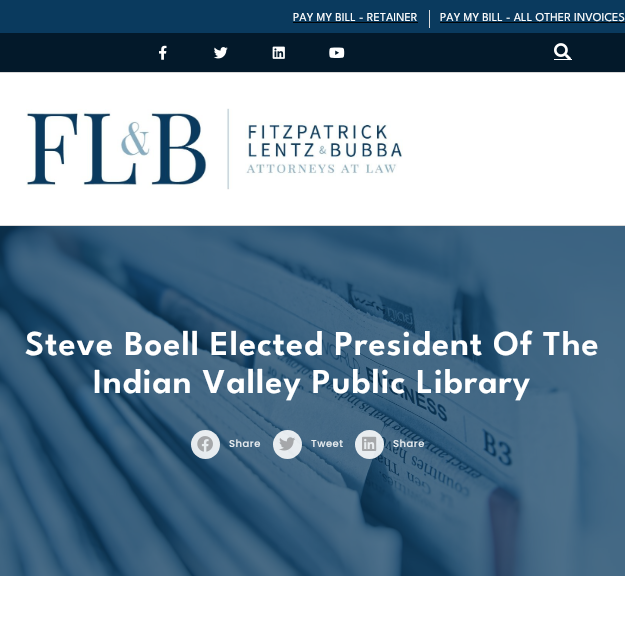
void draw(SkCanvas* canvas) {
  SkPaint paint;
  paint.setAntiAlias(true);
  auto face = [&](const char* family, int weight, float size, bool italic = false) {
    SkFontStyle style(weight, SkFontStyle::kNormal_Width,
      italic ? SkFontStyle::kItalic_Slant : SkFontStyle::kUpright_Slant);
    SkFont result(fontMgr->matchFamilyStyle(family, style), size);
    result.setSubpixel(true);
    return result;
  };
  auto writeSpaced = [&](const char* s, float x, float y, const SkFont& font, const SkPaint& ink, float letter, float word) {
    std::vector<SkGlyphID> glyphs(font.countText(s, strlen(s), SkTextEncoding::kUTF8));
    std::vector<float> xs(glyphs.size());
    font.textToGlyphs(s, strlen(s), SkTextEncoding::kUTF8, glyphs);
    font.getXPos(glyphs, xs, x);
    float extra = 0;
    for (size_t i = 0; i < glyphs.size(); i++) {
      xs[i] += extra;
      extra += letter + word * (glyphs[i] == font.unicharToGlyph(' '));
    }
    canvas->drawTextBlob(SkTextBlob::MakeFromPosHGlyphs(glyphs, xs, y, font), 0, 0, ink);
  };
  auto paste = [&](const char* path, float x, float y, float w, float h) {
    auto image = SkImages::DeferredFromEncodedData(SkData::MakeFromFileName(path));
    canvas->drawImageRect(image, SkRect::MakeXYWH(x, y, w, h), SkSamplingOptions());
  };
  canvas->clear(0xffffffff);
  {
    const struct { float x, y, w, h; SkColor color; } items[] = {
      {0, 33, 625, 39, 0xff03192a},
      {0, 72, 625, 1, 0xffd8d8d8},
      {0, 0, 625, 33, 0xff0a3a5e},
      {293, 22, 125, 1, 0xff010609},
      {429, 10, 1, 18, 0xffdddddd},
      {440, 22, 185, 1, 0xff010609},
    };
    for (auto [x, y, w, h, color] : items) {
      paint.setColor(color);
      canvas->drawRect(SkRect::MakeXYWH(x, y, w, h), paint);
    }
  }
  paste("img/1.png", 159, 45, 8, 15);
  paste("img/2.png", 213, 47, 15, 12);
  paste("img/3.png", 272, 46, 13, 13);
  paste("img/4.png", 329, 47, 16, 11);
  paint.setColor(0xffffffff);
  canvas->drawRect(SkRect::MakeXYWH(554, 59, 18, 1), paint);
  paste("img/5.png", 554, 43, 17, 18);
  paint.setColor(0xffd8d8d8);
  canvas->drawRect(SkRect::MakeXYWH(0, 225, 625, 1), paint);
  paste("img/6.png", 26, 108, 377, 82);
  paste("img/7.png", 0, 226, 625, 350);
  paint.setColor(0xe0ffffff);
  canvas->drawCircle(205.5f, 444.5f, 14.5f, paint);
  paste("img/8.png", 197, 436, 16, 16);
  canvas->drawCircle(287.5f, 444.5f, 14.5f, paint);
  paste("img/9.png", 279, 437, 16, 14);
  canvas->drawCircle(369.5f, 444.5f, 14.5f, paint);
  paste("img/10.png", 362, 436, 15, 15);
  auto f0 = face("League Spartan", 400, 12);
  paint.setColor(0xffffffff);
  writeSpaced("PAY MY BILL - RETAINER", 293, 21, f0, paint, 0.1f, 0);
  writeSpaced("PAY MY BILL - ALL OTHER INVOICES", 440, 21, f0, paint, 0.1f, 0);
  auto f1 = face("League Spartan", 600, 35);
  writeSpaced("Steve Boell Elected President Of The", 25, 355, f1, paint, 1, 0);
  writeSpaced("Indian Valley Public Library", 93, 393, f1, paint, 1, 0);
  auto f2 = face("Poppins", 500, 10);
  paint.setColor(0xffe8edf0);
  {
    const struct { const char* s; float x, y; } items[] = {
      {"Share", 229, 447},
      {"Tweet", 311, 447},
      {"Share", 393, 447},
    };
    for (auto [s, x, y] : items) {
      writeSpaced(s, x, y, f2, paint, 0.5f, 0);
    }
  }
}
